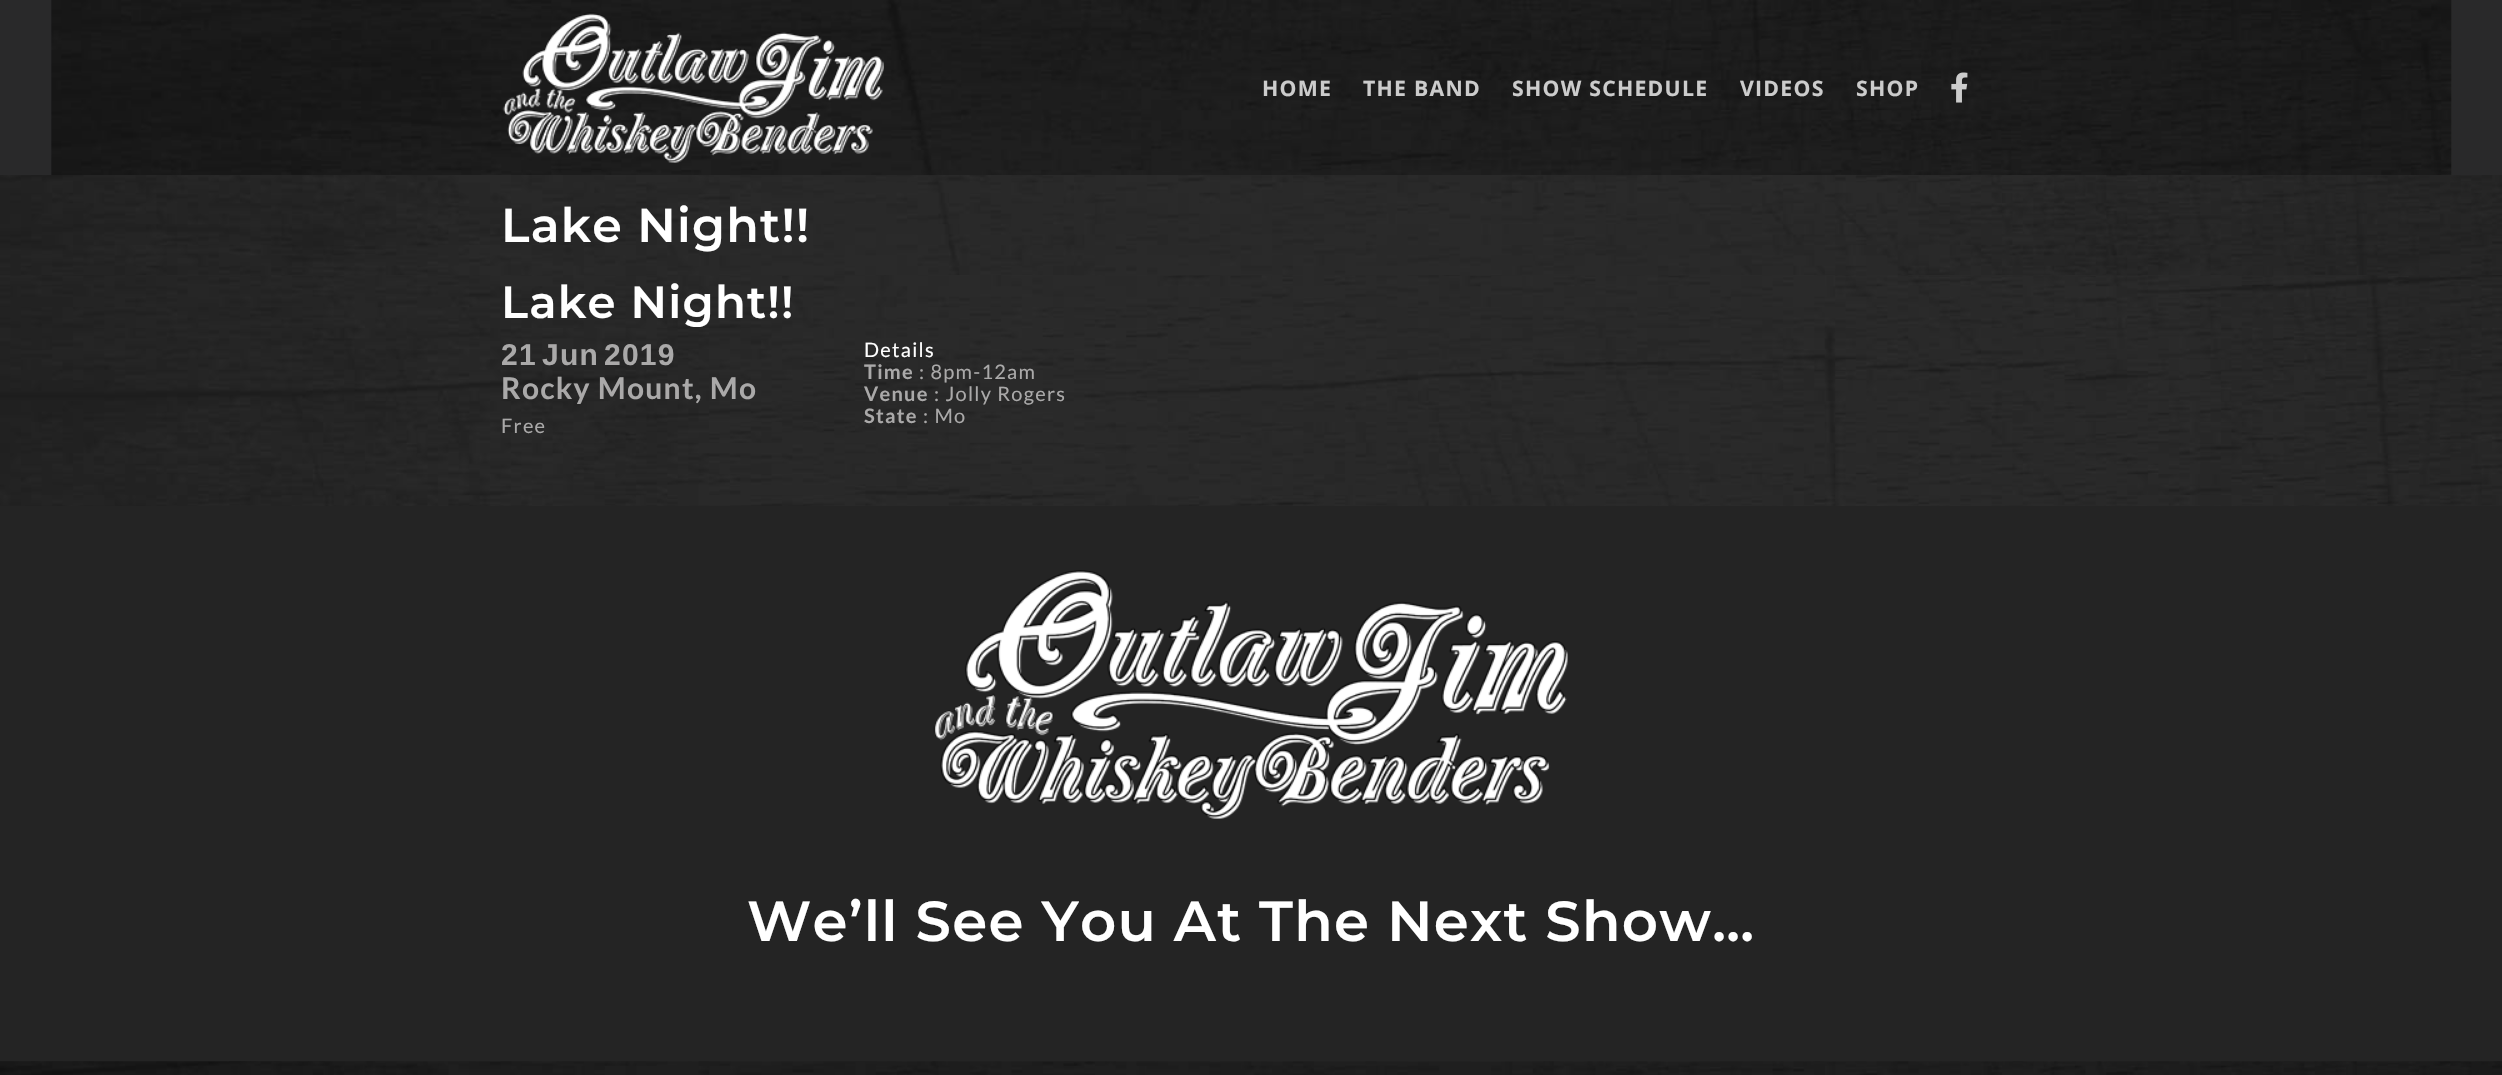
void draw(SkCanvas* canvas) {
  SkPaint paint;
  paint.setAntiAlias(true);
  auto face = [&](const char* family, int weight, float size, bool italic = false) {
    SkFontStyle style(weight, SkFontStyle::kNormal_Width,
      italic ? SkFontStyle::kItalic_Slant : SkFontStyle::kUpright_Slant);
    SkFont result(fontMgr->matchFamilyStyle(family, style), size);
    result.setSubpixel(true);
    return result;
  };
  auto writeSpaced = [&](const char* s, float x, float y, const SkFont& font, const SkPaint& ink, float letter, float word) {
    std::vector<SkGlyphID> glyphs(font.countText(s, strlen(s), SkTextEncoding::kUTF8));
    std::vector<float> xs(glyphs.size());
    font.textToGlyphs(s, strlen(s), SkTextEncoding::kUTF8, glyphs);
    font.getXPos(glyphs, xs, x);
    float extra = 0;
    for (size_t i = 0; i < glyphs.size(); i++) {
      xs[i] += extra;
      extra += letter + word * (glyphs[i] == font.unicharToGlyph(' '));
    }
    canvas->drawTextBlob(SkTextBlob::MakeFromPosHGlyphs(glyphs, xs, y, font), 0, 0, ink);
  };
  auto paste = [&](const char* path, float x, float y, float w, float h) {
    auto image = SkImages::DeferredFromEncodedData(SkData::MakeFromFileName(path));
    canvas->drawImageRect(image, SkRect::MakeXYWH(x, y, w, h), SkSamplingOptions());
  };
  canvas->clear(0xffffffff);
  paste("img/1.png", 0, 175, 2502, 887);
  paint.setColor(0xff29292a);
  canvas->drawRect(SkRect::MakeXYWH(0, 0, 2502, 175), paint);
  paste("img/2.png", 51, 0, 2401, 175);
  paste("img/3.png", 502, 12, 382, 151);
  paste("img/4.png", 1951, 72, 17, 31);
  paste("img/5.png", 0, 275, 2502, 231);
  paint.setColor(0xff242424);
  canvas->drawRect(SkRect::MakeXYWH(0, 506, 2502, 555), paint);
  paste("img/6.png", 933, 570, 635, 249);
  paste("img/7.png", 0, 1061, 2502, 14);
  auto f0 = face("Open Sans", 700, 21.25f);
  paint.setColor(0xffcccccc);
  {
    const struct { const char* s; float x, y; } items[] = {
      {"HOME", 1262, 96},
      {"THE BAND", 1363, 96},
      {"SHOW SCHEDULE", 1512, 96},
      {"VIDEOS", 1740, 96},
      {"SHOP", 1856, 96},
    };
    for (auto [s, x, y] : items) {
      writeSpaced(s, x, y, f0, paint, 1.25f, 0);
    }
  }
  auto f1 = face("Montserrat", 100, 47.5f);
  paint.setColor(0xffffffff);
  writeSpaced("Lake Night!!", 501, 242, f1, paint, 1.25f, 0);
  auto f2 = face("Montserrat", 100, 45);
  writeSpaced("Lake Night!!", 501, 318, f2, paint, 1.25f, 0);
  auto f3 = face("Liberation Sans", 700, 30);
  paint.setColor(0xffaaa9a9);
  {
    const struct { const char* s; float x, y; } items[] = {
      {"21", 501, 365},
      {"Jun", 542, 365},
      {"2019", 604, 365},
    };
    for (auto [s, x, y] : items) {
      writeSpaced(s, x, y, f3, paint, 1.25f, 0);
    }
  }
  auto f4 = face("Lato", 700, 30);
  writeSpaced("Rocky Mount, Mo", 501, 399, f4, paint, 1.25f, 0);
  auto f5 = face("Lato", 400, 20);
  writeSpaced("Free", 501, 433, f5, paint, 1.25f, 0);
  paint.setColor(0xffffffff);
  writeSpaced("Details", 864, 357, f5, paint, 1.25f, 0);
  auto f6 = face("Lato", 700, 20);
  paint.setColor(0xffaaa9a9);
  writeSpaced("Time", 864, 379, f6, paint, 1.25f, 0);
  writeSpaced(": 8pm-12am", 919, 379, f5, paint, 1.25f, 0);
  writeSpaced("Venue", 864, 401, f6, paint, 1.25f, 0);
  writeSpaced(": Jolly Rogers", 934, 401, f5, paint, 1.25f, 0);
  writeSpaced("State", 864, 423, f6, paint, 1.25f, 0);
  writeSpaced(": Mo", 923, 423, f5, paint, 1.25f, 0);
  auto f7 = face("Montserrat", 100, 56.25f);
  paint.setColor(0xffffffff);
  writeSpaced("We’ll See You At The Next Show…", 747, 941, f7, paint, 1.25f, 0);
}
